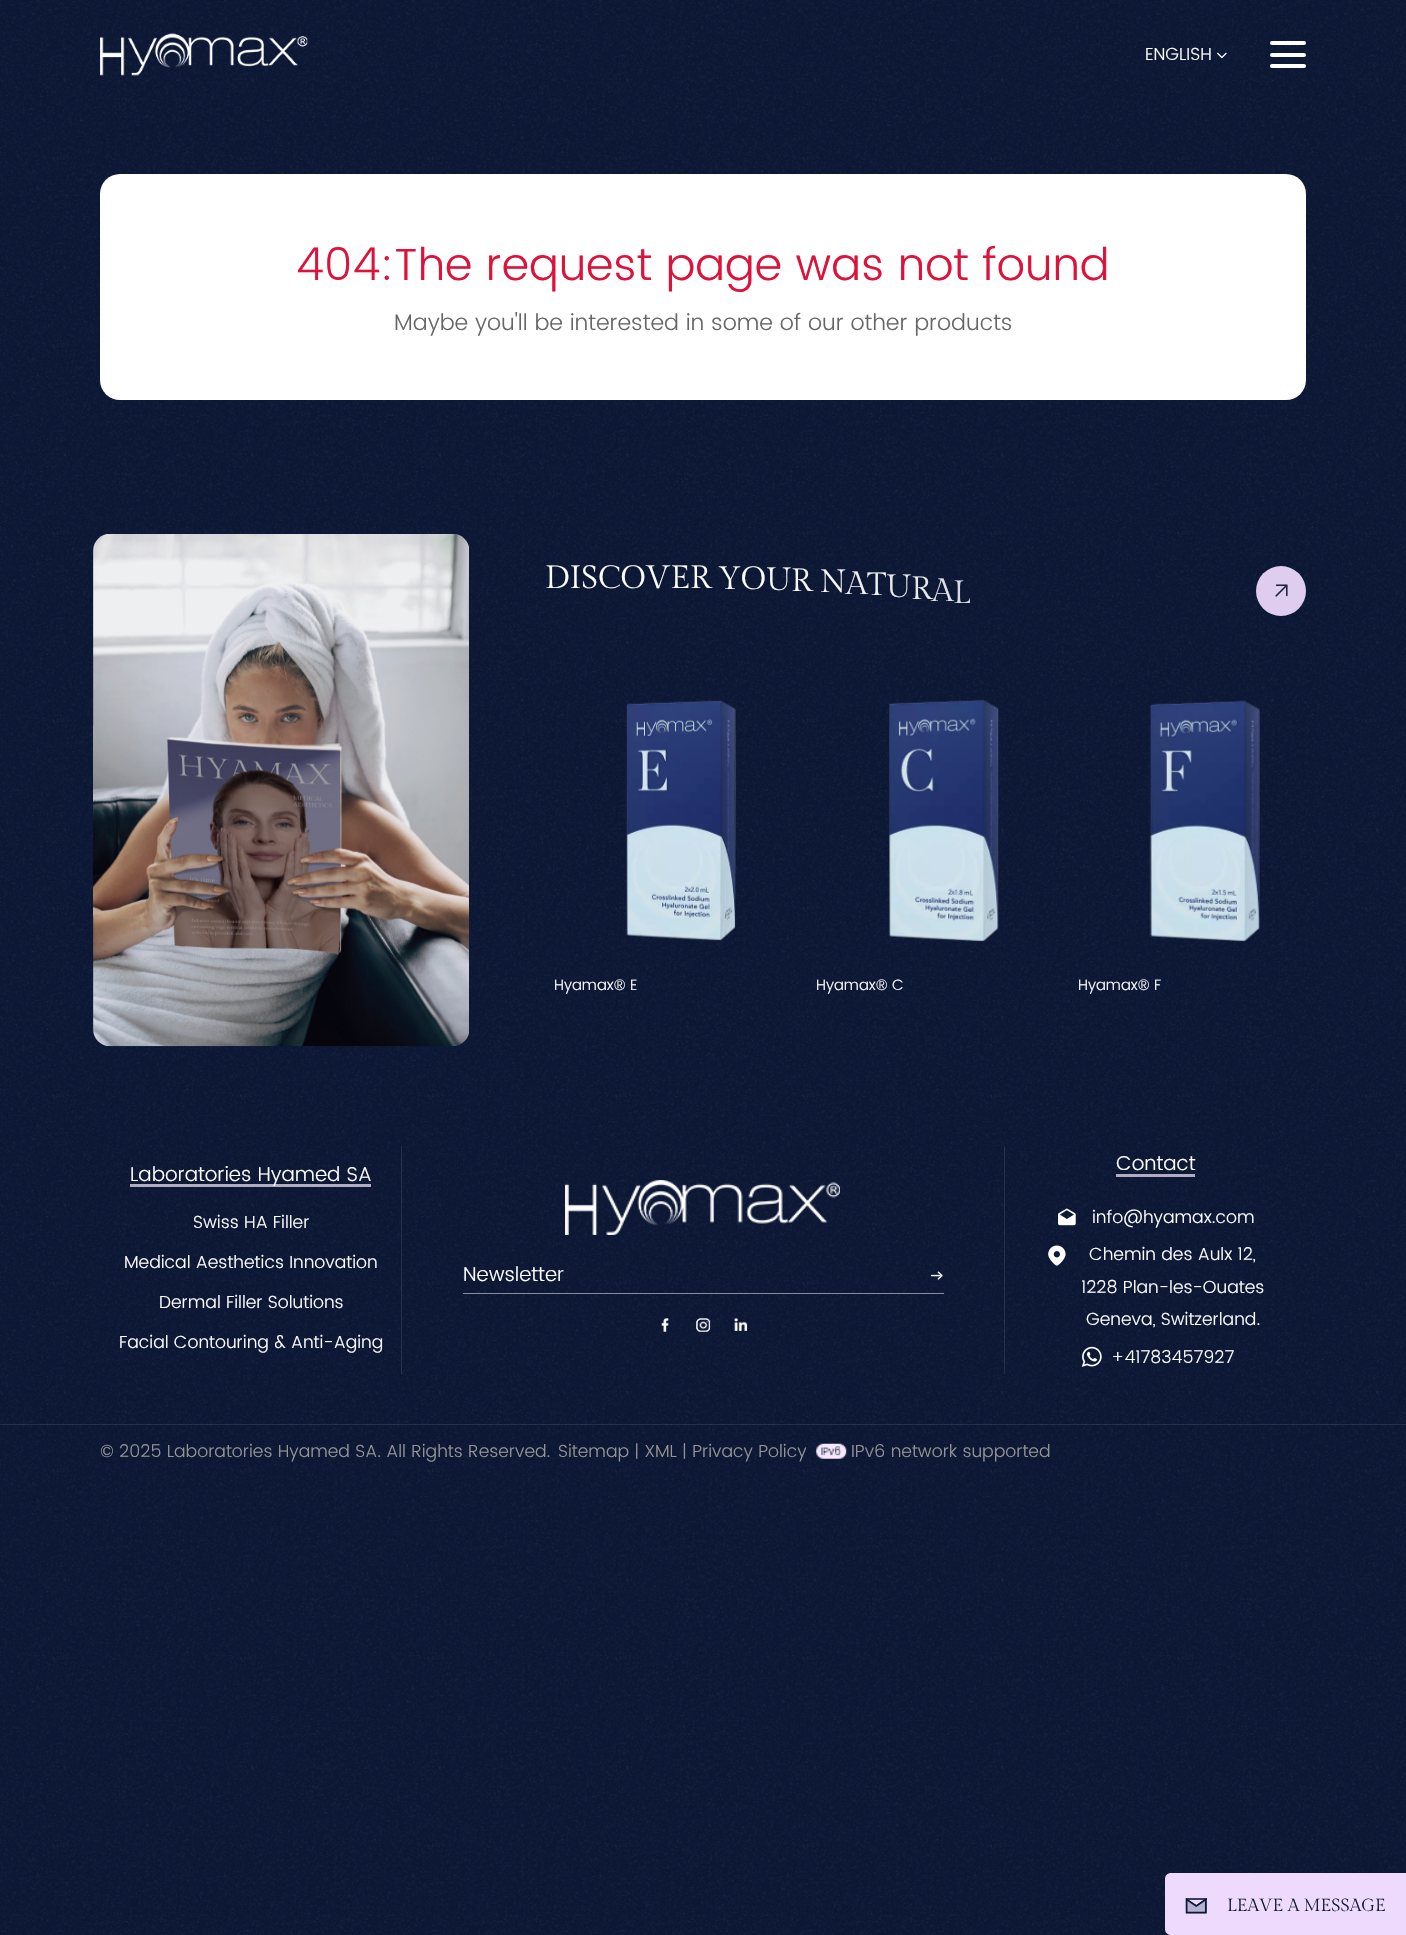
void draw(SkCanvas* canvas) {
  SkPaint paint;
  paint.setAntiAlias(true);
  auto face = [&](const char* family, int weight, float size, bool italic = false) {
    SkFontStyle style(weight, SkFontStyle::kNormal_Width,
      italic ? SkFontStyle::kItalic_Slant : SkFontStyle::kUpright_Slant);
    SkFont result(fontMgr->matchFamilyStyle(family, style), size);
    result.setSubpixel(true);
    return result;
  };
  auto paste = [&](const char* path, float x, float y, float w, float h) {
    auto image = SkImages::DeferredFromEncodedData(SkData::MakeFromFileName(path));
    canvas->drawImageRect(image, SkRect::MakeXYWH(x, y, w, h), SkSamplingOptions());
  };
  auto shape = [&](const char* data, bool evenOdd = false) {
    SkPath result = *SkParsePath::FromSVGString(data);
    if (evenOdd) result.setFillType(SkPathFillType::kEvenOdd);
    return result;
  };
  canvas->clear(0xff0c1735);
  paste("img/1.png", 0, 0, 1406, 1935);
  paste("img/2.png", 100, 33, 208, 43);
  paste("img/3.png", 1217, 52, 10, 7);
  paint.setColor(0xffffffff);
  canvas->drawRoundRect(SkRect::MakeXYWH(1270, 41, 36, 4), 2, 2, paint);
  canvas->drawRoundRect(SkRect::MakeXYWH(1270, 53, 36, 4), 2, 2, paint);
  canvas->drawRoundRect(SkRect::MakeXYWH(1270, 64, 36, 4), 2, 2, paint);
  canvas->drawRoundRect(SkRect::MakeXYWH(100, 174, 1206, 226), 20, 20, paint);
  paste("img/4.png", 93, 534, 376, 513);
  paint.setColor(0xedeedafc);
  canvas->drawCircle(1281, 591, 25, paint);
  paste("img/5.png", 1275, 584, 13, 13);
  paste("img/6.png", 626, 700, 110, 241);
  paste("img/7.png", 889, 699, 110, 243);
  paste("img/8.png", 1149, 700, 111, 242);
  {
    const struct { float x, y, w, h; SkColor color; } items[] = {
      {130, 1184, 241, 3, 0xb3f5e9fe},
      {1004, 1146, 1, 228, 0x1affffff},
      {401, 1146, 1, 228, 0x1affffff},
    };
    for (auto [x, y, w, h, color] : items) {
      paint.setColor(color);
      canvas->drawRect(SkRect::MakeXYWH(x, y, w, h), paint);
    }
  }
  paste("img/9.png", 565, 1180, 275, 55);
  paint.setColor(0x80ffffff);
  canvas->drawRect(SkRect::MakeXYWH(463, 1293, 481, 1), paint);
  paste("img/10.png", 930, 1271, 13, 9);
  paste("img/11.png", 661, 1318, 8, 14);
  paste("img/12.png", 696, 1318, 15, 14);
  paste("img/13.png", 734, 1318, 14, 13);
  paint.setColor(0xb3f5e9fe);
  canvas->drawRect(SkRect::MakeXYWH(1116, 1174, 79, 3), paint);
  paste("img/14.png", 1058, 1208, 18, 18);
  paste("img/15.png", 1048, 1245, 18, 21);
  paste("img/16.png", 1081, 1346, 21, 21);
  paint.setColor(0x1affffff);
  canvas->drawRect(SkRect::MakeXYWH(0, 1424, 1406, 1), paint);
  paste("img/17.png", 816, 1443, 31, 16);
  paint.setColor(0xffeedafc);
  canvas->drawPath(shape("M1171 1873H1406V1935H1171C1167.5 1935 1165 1932.5 1165 1929V1879C1165 1875.5 1167.5 1873 1171 1873Z"), paint);
  paste("img/18.png", 1185, 1898, 22, 16);
  auto f0 = face("Poppins", 300, 17.5f);
  paint.setColor(0xffffffff);
  canvas->drawString("ENGLISH", 1145, 60, f0, paint);
  auto f1 = face("Poppins", 300, 45);
  paint.setColor(0xffdc143c);
  canvas->drawString("404:The request page was not found", 296, 280, f1, paint);
  auto f2 = face("Poppins", 300, 22.5f);
  paint.setColor(0xff666666);
  canvas->drawString("Maybe you'll be interested in some of our other products", 394, 330, f2, paint);
  auto f3 = face("Gilda Display", 400, 32);
  paint.setColor(0xffffffff);
  {
    const struct { const char* s; float x, y; } items[] = {
      {"DISCOVE", 545, 588},
      {"R", 690, 588},
      {"Y", 718, 589},
      {"O", 741, 589},
    };
    for (auto [s, x, y] : items) {
      canvas->drawString(s, x, y, f3, paint);
    }
  }
  paint.setColor(0xfff9f9fa);
  {
    const struct { const char* s; float x, y; } items[] = {
      {"U", 766, 590},
      {"R", 791, 591},
      {"N", 820, 592},
    };
    for (auto [s, x, y] : items) {
      canvas->drawString(s, x, y, f3, paint);
    }
  }
  paint.setColor(0xfff1f1f3);
  canvas->drawString("A", 846, 594, f3, paint);
  canvas->drawString("T", 867, 595, f3, paint);
  paint.setColor(0xffe9eaed);
  canvas->drawString("U", 886, 597, f3, paint);
  canvas->drawString("R", 911, 599, f3, paint);
  paint.setColor(0xffdfe0e4);
  canvas->drawString("A", 932, 601, f3, paint);
  paint.setColor(0xffd9dbdf);
  canvas->drawString("L", 953, 603, f3, paint);
  auto f4 = face("Poppins", 300, 15);
  paint.setColor(0xffffffff);
  {
    const struct { const char* s; float x, y; } items[] = {
      {"Hyamax® E", 554, 990},
      {"Hyamax® C", 816, 990},
      {"Hyamax® F", 1078, 990},
    };
    for (auto [s, x, y] : items) {
      canvas->drawString(s, x, y, f4, paint);
    }
  }
  auto f5 = face("Poppins", 300, 20.1f);
  canvas->drawString("Laboratories Hyamed SA", 130, 1181, f5, paint);
  {
    const struct { const char* s; float x, y; } items[] = {
      {"Swiss HA Filler", 193, 1228},
      {"Medical Aesthetics Innovation", 124, 1268},
      {"Dermal Filler Solutions", 159, 1308},
      {"Facial Contouring & Anti-Aging", 119, 1348},
    };
    for (auto [s, x, y] : items) {
      canvas->drawString(s, x, y, f0, paint);
    }
  }
  auto f6 = face("Poppins", 300, 20);
  canvas->drawString("Newsletter", 463, 1281, f6, paint);
  canvas->drawString("Contact", 1116, 1170, f5, paint);
  {
    const struct { const char* s; float x, y; } items[] = {
      {"info@hyamax.com", 1092, 1223},
      {"Chemin des Aulx 12,", 1089, 1260},
      {"1228 Plan-les-Ouates", 1081, 1293},
      {"Geneva, Switzerland.", 1086, 1325},
      {"+41783457927", 1111, 1363},
    };
    for (auto [s, x, y] : items) {
      canvas->drawString(s, x, y, f0, paint);
    }
  }
  paint.setColor(0xff969696);
  {
    const struct { const char* s; float x, y; } items[] = {
      {"© 2025 Laboratories Hyamed SA. All Rights Reserved.", 100, 1457},
      {"Sitemap | XML | Privacy Policy", 558, 1457},
      {"IPv6 network supported", 851, 1457},
    };
    for (auto [s, x, y] : items) {
      canvas->drawString(s, x, y, f0, paint);
    }
  }
  auto f7 = face("Gilda Display", 400, 17.5f);
  paint.setColor(0xff0c1735);
  canvas->drawString("LEAVE A MESSAGE", 1227, 1911, f7, paint);
}
